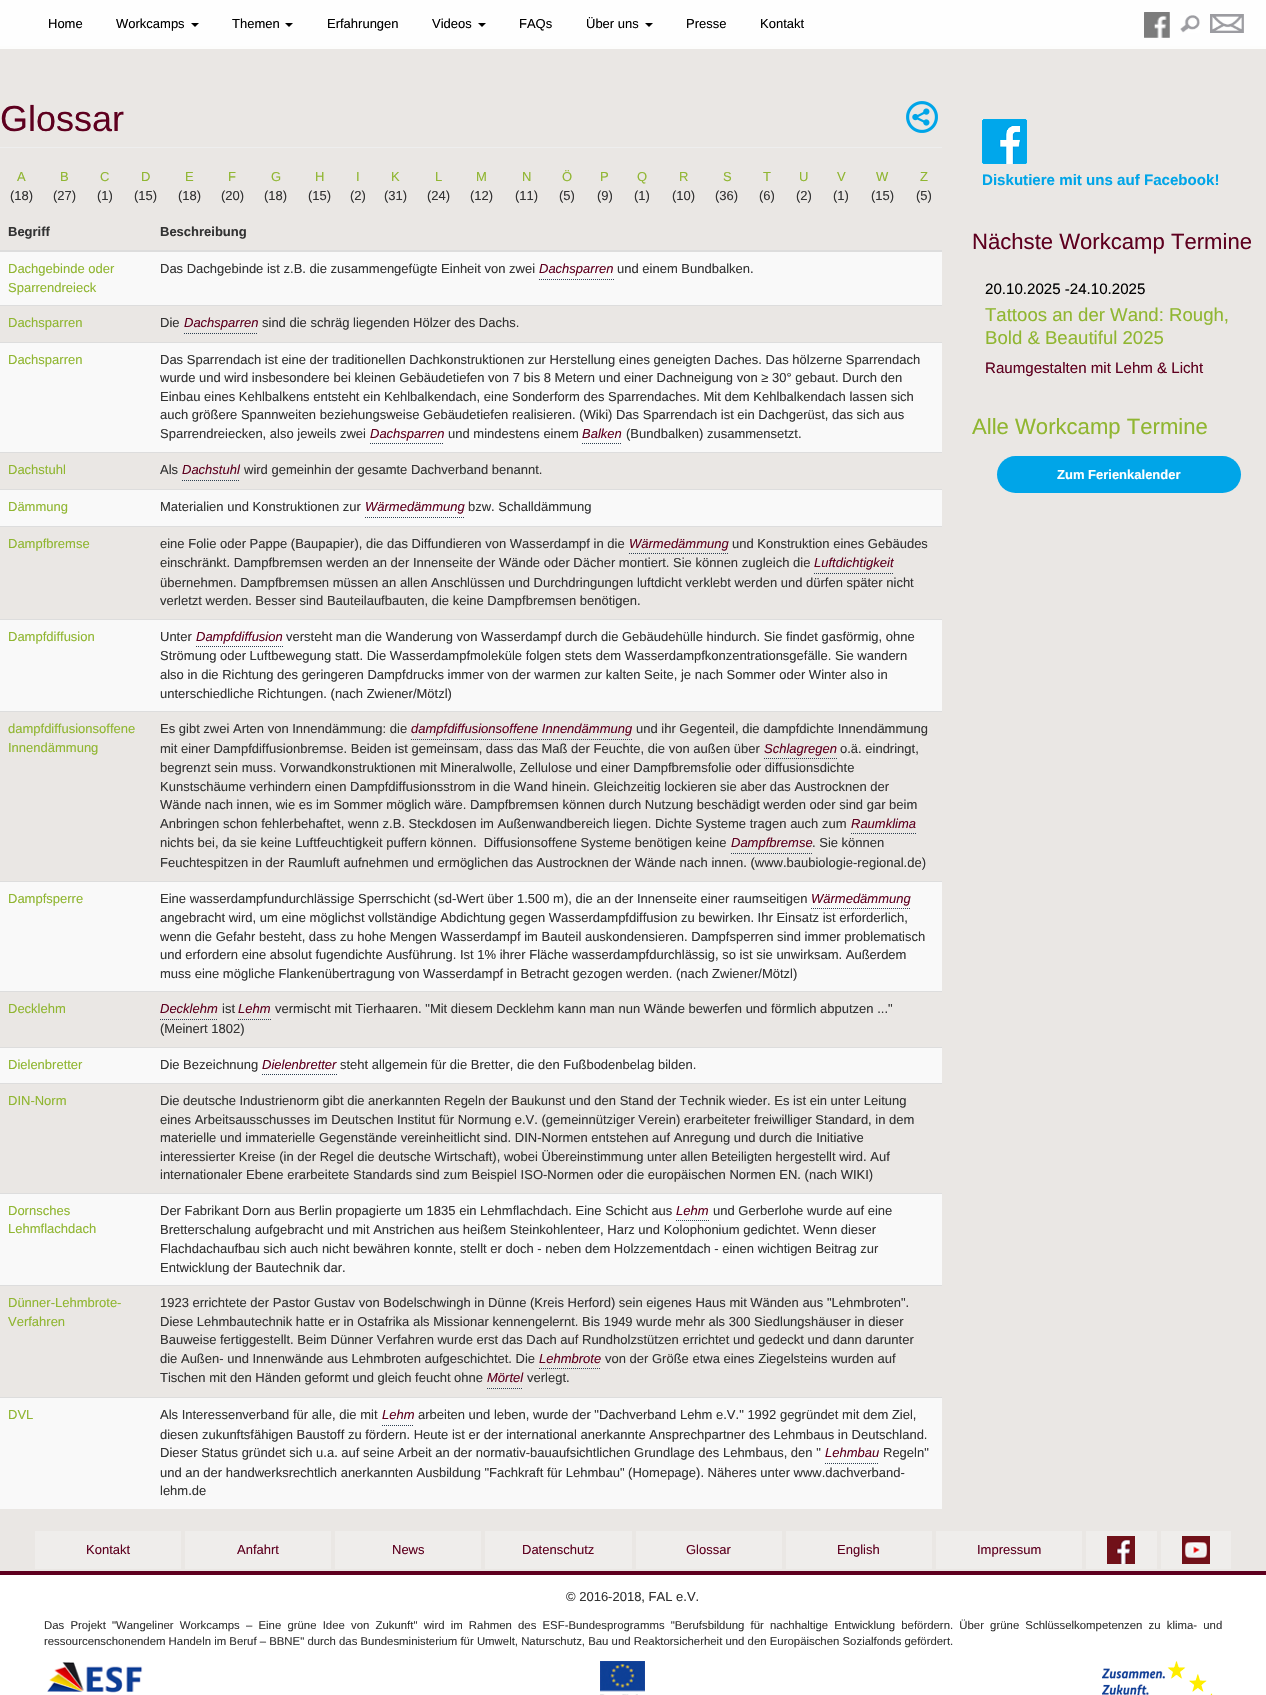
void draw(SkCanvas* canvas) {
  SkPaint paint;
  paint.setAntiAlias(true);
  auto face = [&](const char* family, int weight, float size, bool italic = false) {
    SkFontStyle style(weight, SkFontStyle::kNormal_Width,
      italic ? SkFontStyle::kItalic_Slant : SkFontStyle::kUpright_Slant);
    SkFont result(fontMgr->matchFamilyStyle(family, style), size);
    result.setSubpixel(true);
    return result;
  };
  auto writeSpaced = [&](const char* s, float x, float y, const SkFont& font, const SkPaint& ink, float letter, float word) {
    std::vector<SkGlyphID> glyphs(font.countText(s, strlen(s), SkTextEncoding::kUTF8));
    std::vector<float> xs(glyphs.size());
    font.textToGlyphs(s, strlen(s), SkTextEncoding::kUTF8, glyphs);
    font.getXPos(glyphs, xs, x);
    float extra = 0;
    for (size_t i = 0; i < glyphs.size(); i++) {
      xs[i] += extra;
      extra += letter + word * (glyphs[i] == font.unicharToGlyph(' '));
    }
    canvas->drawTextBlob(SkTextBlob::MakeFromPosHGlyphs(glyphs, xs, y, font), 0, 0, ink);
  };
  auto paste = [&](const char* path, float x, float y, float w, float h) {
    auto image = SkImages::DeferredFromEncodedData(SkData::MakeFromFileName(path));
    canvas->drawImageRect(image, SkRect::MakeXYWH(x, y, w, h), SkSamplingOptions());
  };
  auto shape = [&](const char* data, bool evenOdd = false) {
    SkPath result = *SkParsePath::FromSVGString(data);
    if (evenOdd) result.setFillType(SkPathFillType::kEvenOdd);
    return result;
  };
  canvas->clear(0xffeae7e4);
  paint.setColor(0xfffefefe);
  canvas->drawRect(SkRect::MakeXYWH(0, 0, 1266, 46), paint);
  paint.setColor(0xfffdfdfc);
  canvas->drawRect(SkRect::MakeXYWH(0, 46, 1266, 3), paint);
  paint.setColor(0xff000000);
  canvas->drawPath(shape("M191 23H199L195 27Z"), paint);
  canvas->drawPath(shape("M285 23H293L289 27Z"), paint);
  canvas->drawPath(shape("M478 23H486L482 27Z"), paint);
  canvas->drawPath(shape("M645 23H653L649 27Z"), paint);
  paste("img/1.png", 1144, 12, 26, 26);
  paste("img/2.png", 1180, 15, 20, 18);
  paste("img/3.png", 1210, 14, 34, 19);
  paint.setColor(0xffeeeeee);
  canvas->drawRect(SkRect::MakeXYWH(0, 147, 942, 1), paint);
  paste("img/4.png", 906, 101, 32, 32);
  paint.setColor(0xffdddddd);
  canvas->drawRect(SkRect::MakeXYWH(0, 250, 942, 2), paint);
  paint.setColor(0xfff9f9f9);
  canvas->drawRect(SkRect::MakeXYWH(0, 252, 942, 53), paint);
  paint.setStroke(true);
  paint.setStrokeWidth(1);
  paint.setColor(0xff2c3e50);
  paint.setPathEffect(SkDashPathEffect::Make({{1, 1}}, 0));
  canvas->drawPath(shape("M539 279.5H614"), paint);
  paint.setPathEffect(nullptr);
  paint.setStroke(false);
  paint.setColor(0xffdddddd);
  canvas->drawRect(SkRect::MakeXYWH(0, 305, 942, 1), paint);
  paint.setStroke(true);
  paint.setColor(0xff2c3e50);
  paint.setPathEffect(SkDashPathEffect::Make({{1, 1}}, 0));
  canvas->drawPath(shape("M184 333.5H258"), paint);
  paint.setPathEffect(nullptr);
  paint.setStroke(false);
  paint.setColor(0xfff9f9f9);
  canvas->drawRect(SkRect::MakeXYWH(0, 343, 942, 109), paint);
  paint.setColor(0xffdddddd);
  canvas->drawRect(SkRect::MakeXYWH(0, 342, 942, 1), paint);
  paint.setStroke(true);
  paint.setColor(0xff2c3e50);
  paint.setPathEffect(SkDashPathEffect::Make({{1, 1}}, 0));
  canvas->drawPath(shape("M370 443.5H444"), paint);
  paint.setPathEffect(nullptr);
  paint.setPathEffect(SkDashPathEffect::Make({{1, 1}}, 0));
  canvas->drawPath(shape("M582 443.5H622"), paint);
  paint.setPathEffect(nullptr);
  paint.setStroke(false);
  paint.setColor(0xffdddddd);
  canvas->drawRect(SkRect::MakeXYWH(0, 452, 942, 1), paint);
  paint.setStroke(true);
  paint.setColor(0xff2c3e50);
  paint.setPathEffect(SkDashPathEffect::Make({{1, 1}}, 0));
  canvas->drawPath(shape("M182 480.5H240"), paint);
  paint.setPathEffect(nullptr);
  paint.setStroke(false);
  paint.setColor(0xfff9f9f9);
  canvas->drawRect(SkRect::MakeXYWH(0, 490, 942, 36), paint);
  paint.setColor(0xffdddddd);
  canvas->drawRect(SkRect::MakeXYWH(0, 489, 942, 1), paint);
  paint.setStroke(true);
  paint.setColor(0xff2c3e50);
  paint.setPathEffect(SkDashPathEffect::Make({{1, 1}}, 0));
  canvas->drawPath(shape("M365 517.5H465"), paint);
  paint.setPathEffect(nullptr);
  paint.setStroke(false);
  paint.setColor(0xffdddddd);
  canvas->drawRect(SkRect::MakeXYWH(0, 526, 942, 1), paint);
  paint.setStroke(true);
  paint.setColor(0xff2c3e50);
  paint.setPathEffect(SkDashPathEffect::Make({{1, 1}}, 0));
  canvas->drawPath(shape("M629 553.5H728"), paint);
  paint.setPathEffect(nullptr);
  paint.setPathEffect(SkDashPathEffect::Make({{1, 1}}, 0));
  canvas->drawPath(shape("M814 573.5H894"), paint);
  paint.setPathEffect(nullptr);
  paint.setStroke(false);
  paint.setColor(0xfff9f9f9);
  canvas->drawRect(SkRect::MakeXYWH(0, 620, 942, 91), paint);
  paint.setColor(0xffdddddd);
  canvas->drawRect(SkRect::MakeXYWH(0, 619, 942, 1), paint);
  paint.setStroke(true);
  paint.setColor(0xff2c3e50);
  paint.setPathEffect(SkDashPathEffect::Make({{1, 1}}, 0));
  canvas->drawPath(shape("M196 646.5H283"), paint);
  paint.setPathEffect(nullptr);
  paint.setStroke(false);
  paint.setColor(0xffdddddd);
  canvas->drawRect(SkRect::MakeXYWH(0, 711, 942, 1), paint);
  paint.setStroke(true);
  paint.setColor(0xff2c3e50);
  paint.setPathEffect(SkDashPathEffect::Make({{1, 1}}, 0));
  canvas->drawPath(shape("M411 739.5H632"), paint);
  paint.setPathEffect(nullptr);
  paint.setPathEffect(SkDashPathEffect::Make({{1, 1}}, 0));
  canvas->drawPath(shape("M764 758.5H837"), paint);
  paint.setPathEffect(nullptr);
  paint.setPathEffect(SkDashPathEffect::Make({{1, 1}}, 0));
  canvas->drawPath(shape("M851 833.5H916"), paint);
  paint.setPathEffect(nullptr);
  paint.setPathEffect(SkDashPathEffect::Make({{1, 1}}, 0));
  canvas->drawPath(shape("M731 853.5H812"), paint);
  paint.setPathEffect(nullptr);
  paint.setStroke(false);
  paint.setColor(0xfff9f9f9);
  canvas->drawRect(SkRect::MakeXYWH(0, 882, 942, 109), paint);
  paint.setColor(0xffdddddd);
  canvas->drawRect(SkRect::MakeXYWH(0, 881, 942, 1), paint);
  paint.setStroke(true);
  paint.setColor(0xff2c3e50);
  paint.setPathEffect(SkDashPathEffect::Make({{1, 1}}, 0));
  canvas->drawPath(shape("M811 908.5H911"), paint);
  paint.setPathEffect(nullptr);
  paint.setStroke(false);
  paint.setColor(0xffdddddd);
  canvas->drawRect(SkRect::MakeXYWH(0, 991, 942, 1), paint);
  paint.setStroke(true);
  paint.setColor(0xff2c3e50);
  paint.setPathEffect(SkDashPathEffect::Make({{1, 1}}, 0));
  canvas->drawPath(shape("M160 1019.5H218"), paint);
  paint.setPathEffect(nullptr);
  paint.setPathEffect(SkDashPathEffect::Make({{1, 1}}, 0));
  canvas->drawPath(shape("M238 1019.5H271"), paint);
  paint.setPathEffect(nullptr);
  paint.setStroke(false);
  paint.setColor(0xfff9f9f9);
  canvas->drawRect(SkRect::MakeXYWH(0, 1048, 942, 35), paint);
  paint.setColor(0xffdddddd);
  canvas->drawRect(SkRect::MakeXYWH(0, 1047, 942, 1), paint);
  paint.setStroke(true);
  paint.setColor(0xff2c3e50);
  paint.setPathEffect(SkDashPathEffect::Make({{1, 1}}, 0));
  canvas->drawPath(shape("M262 1074.5H337"), paint);
  paint.setPathEffect(nullptr);
  paint.setStroke(false);
  {
    const struct { float x, y, w, h; SkColor color; } items[] = {
      {0, 1083, 942, 1, 0xffdddddd},
      {0, 1194, 942, 91, 0xfff9f9f9},
      {0, 1193, 942, 1, 0xffdddddd},
    };
    for (auto [x, y, w, h, color] : items) {
      paint.setColor(color);
      canvas->drawRect(SkRect::MakeXYWH(x, y, w, h), paint);
    }
  }
  paint.setStroke(true);
  paint.setColor(0xff2c3e50);
  paint.setPathEffect(SkDashPathEffect::Make({{1, 1}}, 0));
  canvas->drawPath(shape("M676 1220.5H709"), paint);
  paint.setPathEffect(nullptr);
  paint.setStroke(false);
  paint.setColor(0xffdddddd);
  canvas->drawRect(SkRect::MakeXYWH(0, 1285, 942, 1), paint);
  paint.setStroke(true);
  paint.setColor(0xff2c3e50);
  paint.setPathEffect(SkDashPathEffect::Make({{1, 1}}, 0));
  canvas->drawPath(shape("M539 1368.5H601"), paint);
  paint.setPathEffect(nullptr);
  paint.setPathEffect(SkDashPathEffect::Make({{1, 1}}, 0));
  canvas->drawPath(shape("M487 1388.5H523"), paint);
  paint.setPathEffect(nullptr);
  paint.setStroke(false);
  paint.setColor(0xfff9f9f9);
  canvas->drawRect(SkRect::MakeXYWH(0, 1398, 942, 111), paint);
  paint.setColor(0xffdddddd);
  canvas->drawRect(SkRect::MakeXYWH(0, 1397, 942, 1), paint);
  paint.setStroke(true);
  paint.setColor(0xff2c3e50);
  paint.setPathEffect(SkDashPathEffect::Make({{1, 1}}, 0));
  canvas->drawPath(shape("M382 1425.5H414"), paint);
  paint.setPathEffect(nullptr);
  paint.setPathEffect(SkDashPathEffect::Make({{1, 1}}, 0));
  canvas->drawPath(shape("M825 1463.5H879"), paint);
  paint.setPathEffect(nullptr);
  paste("img/5.png", 982, 119, 45, 45);
  paint.setStroke(false);
  paint.setColor(0xff00a5e8);
  canvas->drawRoundRect(SkRect::MakeXYWH(997, 456, 244, 37), 18.5f, 18.5f, paint);
  {
    const struct { float x, y, w, h; SkColor color; } items[] = {
      {0, 1571, 1266, 4, 0xff5e001f},
      {35, 1531, 146, 38, 0xffefedeb},
      {185, 1531, 146, 38, 0xffefedeb},
      {335, 1531, 146, 38, 0xffefedeb},
      {485, 1531, 147, 38, 0xffefedeb},
      {636, 1531, 146, 38, 0xffefedeb},
      {786, 1531, 146, 38, 0xffefedeb},
      {936, 1531, 146, 38, 0xffefedeb},
      {1086, 1531, 71, 38, 0xffefedeb},
    };
    for (auto [x, y, w, h, color] : items) {
      paint.setColor(color);
      canvas->drawRect(SkRect::MakeXYWH(x, y, w, h), paint);
    }
  }
  paste("img/6.png", 1107, 1536, 28, 28);
  canvas->drawRect(SkRect::MakeXYWH(1161, 1531, 70, 38), paint);
  paste("img/7.png", 1182, 1536, 28, 28);
  paint.setColor(0xffffffff);
  canvas->drawRect(SkRect::MakeXYWH(0, 1575, 1266, 120), paint);
  paste("img/8.png", 47, 1662, 96, 31);
  paste("img/9.png", 600, 1661, 45, 34);
  paste("img/10.png", 1102, 1661, 111, 34);
  auto f0 = face("Liberation Sans", 400, 13);
  paint.setColor(0xff000000);
  {
    const struct { const char* s; float x, y; } items[] = {
      {"Home", 48, 28},
      {"Workcamps", 116, 28},
      {"Themen", 232, 28},
      {"Erfahrungen", 327, 28},
      {"Videos", 432, 28},
      {"FAQs", 519, 28},
      {"Über uns", 586, 28},
      {"Presse", 686, 28},
      {"Kontakt", 760, 28},
    };
    for (auto [s, x, y] : items) {
      canvas->drawString(s, x, y, f0, paint);
    }
  }
  auto f1 = face("Liberation Sans", 400, 36);
  paint.setColor(0xff5e001f);
  canvas->drawString("Glossar", 0, 131, f1, paint);
  paint.setColor(0xff90b631);
  canvas->drawString("A", 17, 181, f0, paint);
  paint.setColor(0xff333333);
  canvas->drawString("(18)", 10, 200, f0, paint);
  paint.setColor(0xff90b631);
  canvas->drawString("B", 60, 181, f0, paint);
  paint.setColor(0xff333333);
  canvas->drawString("(27)", 53, 200, f0, paint);
  paint.setColor(0xff90b631);
  canvas->drawString("C", 100, 181, f0, paint);
  paint.setColor(0xff333333);
  canvas->drawString("(1)", 97, 200, f0, paint);
  paint.setColor(0xff90b631);
  canvas->drawString("D", 141, 181, f0, paint);
  paint.setColor(0xff333333);
  canvas->drawString("(15)", 134, 200, f0, paint);
  paint.setColor(0xff90b631);
  canvas->drawString("E", 185, 181, f0, paint);
  paint.setColor(0xff333333);
  canvas->drawString("(18)", 178, 200, f0, paint);
  paint.setColor(0xff90b631);
  canvas->drawString("F", 228, 181, f0, paint);
  paint.setColor(0xff333333);
  canvas->drawString("(20)", 221, 200, f0, paint);
  paint.setColor(0xff90b631);
  canvas->drawString("G", 271, 181, f0, paint);
  paint.setColor(0xff333333);
  canvas->drawString("(18)", 264, 200, f0, paint);
  paint.setColor(0xff90b631);
  canvas->drawString("H", 315, 181, f0, paint);
  paint.setColor(0xff333333);
  canvas->drawString("(15)", 308, 200, f0, paint);
  paint.setColor(0xff90b631);
  canvas->drawString("I", 356, 181, f0, paint);
  paint.setColor(0xff333333);
  canvas->drawString("(2)", 350, 200, f0, paint);
  paint.setColor(0xff90b631);
  canvas->drawString("K", 391, 181, f0, paint);
  paint.setColor(0xff333333);
  canvas->drawString("(31)", 384, 200, f0, paint);
  paint.setColor(0xff90b631);
  canvas->drawString("L", 435, 181, f0, paint);
  paint.setColor(0xff333333);
  canvas->drawString("(24)", 427, 200, f0, paint);
  paint.setColor(0xff90b631);
  canvas->drawString("M", 476, 181, f0, paint);
  paint.setColor(0xff333333);
  canvas->drawString("(12)", 470, 200, f0, paint);
  paint.setColor(0xff90b631);
  canvas->drawString("N", 522, 181, f0, paint);
  paint.setColor(0xff333333);
  canvas->drawString("(11)", 515, 200, f0, paint);
  paint.setColor(0xff90b631);
  canvas->drawString("Ö", 562, 181, f0, paint);
  paint.setColor(0xff333333);
  canvas->drawString("(5)", 559, 200, f0, paint);
  paint.setColor(0xff90b631);
  canvas->drawString("P", 600, 181, f0, paint);
  paint.setColor(0xff333333);
  canvas->drawString("(9)", 597, 200, f0, paint);
  paint.setColor(0xff90b631);
  canvas->drawString("Q", 637, 181, f0, paint);
  paint.setColor(0xff333333);
  canvas->drawString("(1)", 634, 200, f0, paint);
  paint.setColor(0xff90b631);
  canvas->drawString("R", 679, 181, f0, paint);
  paint.setColor(0xff333333);
  canvas->drawString("(10)", 672, 200, f0, paint);
  paint.setColor(0xff90b631);
  canvas->drawString("S", 723, 181, f0, paint);
  paint.setColor(0xff333333);
  canvas->drawString("(36)", 715, 200, f0, paint);
  paint.setColor(0xff90b631);
  canvas->drawString("T", 763, 181, f0, paint);
  paint.setColor(0xff333333);
  canvas->drawString("(6)", 759, 200, f0, paint);
  paint.setColor(0xff90b631);
  canvas->drawString("U", 799, 181, f0, paint);
  paint.setColor(0xff333333);
  canvas->drawString("(2)", 796, 200, f0, paint);
  paint.setColor(0xff90b631);
  canvas->drawString("V", 837, 181, f0, paint);
  paint.setColor(0xff333333);
  canvas->drawString("(1)", 833, 200, f0, paint);
  paint.setColor(0xff90b631);
  canvas->drawString("W", 876, 181, f0, paint);
  paint.setColor(0xff333333);
  canvas->drawString("(15)", 871, 200, f0, paint);
  paint.setColor(0xff90b631);
  canvas->drawString("Z", 920, 181, f0, paint);
  paint.setColor(0xff333333);
  canvas->drawString("(5)", 916, 200, f0, paint);
  auto f2 = face("Liberation Sans", 700, 13);
  canvas->drawString("Begriff", 8, 236, f2, paint);
  canvas->drawString("Beschreibung", 160, 236, f2, paint);
  paint.setColor(0xff90b631);
  canvas->drawString("Dachgebinde oder", 8, 273, f0, paint);
  canvas->drawString("Sparrendreieck", 8, 292, f0, paint);
  paint.setColor(0xff333333);
  canvas->drawString("Das Dachgebinde ist z.B. die zusammengefügte Einheit von zwei", 160, 273, f0, paint);
  auto f3 = face("Liberation Sans", 400, 13, true);
  paint.setColor(0xff5e001f);
  canvas->drawString("Dachsparren", 539, 273, f3, paint);
  paint.setColor(0xff333333);
  canvas->drawString("und einem Bundbalken.", 617, 273, f0, paint);
  paint.setColor(0xff90b631);
  canvas->drawString("Dachsparren", 8, 327, f0, paint);
  paint.setColor(0xff333333);
  canvas->drawString("Die", 160, 327, f0, paint);
  paint.setColor(0xff5e001f);
  canvas->drawString("Dachsparren", 184, 327, f3, paint);
  paint.setColor(0xff333333);
  canvas->drawString("sind die schräg liegenden Hölzer des Dachs.", 262, 327, f0, paint);
  paint.setColor(0xff90b631);
  canvas->drawString("Dachsparren", 8, 364, f0, paint);
  paint.setColor(0xff333333);
  {
    const struct { const char* s; float x, y; } items[] = {
      {"Das Sparrendach ist eine der traditionellen Dachkonstruktionen zur Herstellung eines geneigten Daches. Das hölzerne Sparrendach", 160, 364},
      {"wurde und wird insbesondere bei kleinen Gebäudetiefen von 7 bis 8 Metern und einer Dachneigung von ≥ 30° gebaut. Durch den", 160, 382},
      {"Einbau eines Kehlbalkens entsteht ein Kehlbalkendach, eine Sonderform des Sparrendaches. Mit dem Kehlbalkendach lassen sich", 160, 401},
      {"auch größere Spannweiten beziehungsweise Gebäudetiefen realisieren. (Wiki) Das Sparrendach ist ein Dachgerüst, das sich aus", 160, 419},
      {"Sparrendreiecken, also jeweils zwei", 160, 438},
    };
    for (auto [s, x, y] : items) {
      canvas->drawString(s, x, y, f0, paint);
    }
  }
  paint.setColor(0xff5e001f);
  canvas->drawString("Dachsparren", 370, 438, f3, paint);
  paint.setColor(0xff333333);
  canvas->drawString("und mindestens einem", 448, 438, f0, paint);
  paint.setColor(0xff5e001f);
  canvas->drawString("Balken", 582, 438, f3, paint);
  paint.setColor(0xff333333);
  canvas->drawString("(Bundbalken) zusammensetzt.", 626, 438, f0, paint);
  paint.setColor(0xff90b631);
  canvas->drawString("Dachstuhl", 8, 474, f0, paint);
  paint.setColor(0xff333333);
  canvas->drawString("Als", 160, 474, f0, paint);
  paint.setColor(0xff5e001f);
  canvas->drawString("Dachstuhl", 182, 474, f3, paint);
  paint.setColor(0xff333333);
  canvas->drawString("wird gemeinhin der gesamte Dachverband benannt.", 244, 474, f0, paint);
  paint.setColor(0xff90b631);
  canvas->drawString("Dämmung", 8, 511, f0, paint);
  paint.setColor(0xff333333);
  canvas->drawString("Materialien und Konstruktionen zur", 160, 511, f0, paint);
  paint.setColor(0xff5e001f);
  canvas->drawString("Wärmedämmung", 365, 511, f3, paint);
  paint.setColor(0xff333333);
  canvas->drawString("bzw. Schalldämmung", 468, 511, f0, paint);
  paint.setColor(0xff90b631);
  canvas->drawString("Dampfbremse", 8, 548, f0, paint);
  paint.setColor(0xff333333);
  canvas->drawString("eine Folie oder Pappe (Baupapier), die das Diffundieren von Wasserdampf in die", 160, 548, f0, paint);
  paint.setColor(0xff5e001f);
  canvas->drawString("Wärmedämmung", 629, 548, f3, paint);
  paint.setColor(0xff333333);
  canvas->drawString("und Konstruktion eines Gebäudes", 732, 548, f0, paint);
  canvas->drawString("einschränkt. Dampfbremsen werden an der Innenseite der Wände oder Dächer montiert. Sie können zugleich die", 160, 567, f0, paint);
  paint.setColor(0xff5e001f);
  canvas->drawString("Luftdichtigkeit", 814, 567, f3, paint);
  paint.setColor(0xff333333);
  canvas->drawString("übernehmen. Dampfbremsen müssen an allen Anschlüssen und Durchdringungen luftdicht verklebt werden und dürfen später nicht", 160, 587, f0, paint);
  canvas->drawString("verletzt werden. Besser sind Bauteilaufbauten, die keine Dampfbremsen benötigen.", 160, 605, f0, paint);
  paint.setColor(0xff90b631);
  canvas->drawString("Dampfdiffusion", 8, 641, f0, paint);
  paint.setColor(0xff333333);
  canvas->drawString("Unter", 160, 641, f0, paint);
  paint.setColor(0xff5e001f);
  canvas->drawString("Dampfdiffusion", 196, 641, f3, paint);
  paint.setColor(0xff333333);
  {
    const struct { const char* s; float x, y; } items[] = {
      {"versteht man die Wanderung von Wasserdampf durch die Gebäudehülle hindurch. Sie findet gasförmig, ohne", 286, 641},
      {"Strömung oder Luftbewegung statt. Die Wasserdampfmoleküle folgen stets dem Wasserdampfkonzentrationsgefälle. Sie wandern", 160, 660},
      {"also in die Richtung des geringeren Dampfdrucks immer von der warmen zur kalten Seite, je nach Sommer oder Winter also in", 160, 679},
      {"unterschiedliche Richtungen. (nach Zwiener/Mötzl)", 160, 698},
    };
    for (auto [s, x, y] : items) {
      canvas->drawString(s, x, y, f0, paint);
    }
  }
  paint.setColor(0xff90b631);
  canvas->drawString("dampfdiffusionsoffene", 8, 733, f0, paint);
  canvas->drawString("Innendämmung", 8, 752, f0, paint);
  paint.setColor(0xff333333);
  canvas->drawString("Es gibt zwei Arten von Innendämmung: die", 160, 733, f0, paint);
  paint.setColor(0xff5e001f);
  canvas->drawString("dampfdiffusionsoffene Innendämmung", 411, 733, f3, paint);
  paint.setColor(0xff333333);
  canvas->drawString("und ihr Gegenteil, die dampfdichte Innendämmung", 636, 733, f0, paint);
  canvas->drawString("mit einer Dampfdiffusionbremse. Beiden ist gemeinsam, dass das Maß der Feuchte, die von außen über", 160, 753, f0, paint);
  paint.setColor(0xff5e001f);
  canvas->drawString("Schlagregen", 764, 753, f3, paint);
  paint.setColor(0xff333333);
  {
    const struct { const char* s; float x, y; } items[] = {
      {"o.ä. eindringt,", 840, 753},
      {"begrenzt sein muss. Vorwandkonstruktionen mit Mineralwolle, Zellulose und einer Dampfbremsfolie oder diffusionsdichte", 160, 772},
      {"Kunstschäume verhindern einen Dampfdiffusionsstrom in die Wand hinein. Gleichzeitig lockieren sie aber das Austrocknen der", 160, 791},
      {"Wände nach innen, wie es im Sommer möglich wäre. Dampfbremsen können durch Nutzung beschädigt werden oder sind gar beim", 160, 809},
      {"Anbringen schon fehlerbehaftet, wenn z.B. Steckdosen im Außenwandbereich liegen. Dichte Systeme tragen auch zum", 160, 828},
    };
    for (auto [s, x, y] : items) {
      canvas->drawString(s, x, y, f0, paint);
    }
  }
  paint.setColor(0xff5e001f);
  canvas->drawString("Raumklima", 851, 828, f3, paint);
  paint.setColor(0xff333333);
  canvas->drawString("nichts bei, da sie keine Luftfeuchtigkeit puffern können.  Diffusionsoffene Systeme benötigen keine", 160, 847, f0, paint);
  paint.setColor(0xff5e001f);
  canvas->drawString("Dampfbremse", 731, 847, f3, paint);
  paint.setColor(0xff333333);
  canvas->drawString(". Sie können", 812, 847, f0, paint);
  canvas->drawString("Feuchtespitzen in der Raumluft aufnehmen und ermöglichen das Austrocknen der Wände nach innen. (www.baubiologie-regional.de)", 160, 867, f0, paint);
  paint.setColor(0xff90b631);
  canvas->drawString("Dampfsperre", 8, 903, f0, paint);
  paint.setColor(0xff333333);
  canvas->drawString("Eine wasserdampfundurchlässige Sperrschicht (sd-Wert über 1.500 m), die an der Innenseite einer raumseitigen", 160, 903, f0, paint);
  paint.setColor(0xff5e001f);
  canvas->drawString("Wärmedämmung", 811, 903, f3, paint);
  paint.setColor(0xff333333);
  {
    const struct { const char* s; float x, y; } items[] = {
      {"angebracht wird, um eine möglichst vollständige Abdichtung gegen Wasserdampfdiffusion zu bewirken. Ihr Einsatz ist erforderlich,", 160, 922},
      {"wenn die Gefahr besteht, dass zu hohe Mengen Wasserdampf im Bauteil auskondensieren. Dampfsperren sind immer problematisch", 160, 941},
      {"und erfordern eine absolut fugendichte Ausführung. Ist 1% ihrer Fläche wasserdampfdurchlässig, so ist sie unwirksam. Außerdem", 160, 959},
      {"muss eine mögliche Flankenübertragung von Wasserdampf in Betracht gezogen werden. (nach Zwiener/Mötzl)", 160, 978},
    };
    for (auto [s, x, y] : items) {
      canvas->drawString(s, x, y, f0, paint);
    }
  }
  paint.setColor(0xff90b631);
  canvas->drawString("Decklehm", 8, 1013, f0, paint);
  paint.setColor(0xff5e001f);
  canvas->drawString("Decklehm", 160, 1013, f3, paint);
  paint.setColor(0xff333333);
  canvas->drawString("ist", 222, 1013, f0, paint);
  paint.setColor(0xff5e001f);
  canvas->drawString("Lehm", 238, 1013, f3, paint);
  paint.setColor(0xff333333);
  canvas->drawString("vermischt mit Tierhaaren. \"Mit diesem Decklehm kann man nun Wände bewerfen und förmlich abputzen ...\"", 275, 1013, f0, paint);
  canvas->drawString("(Meinert 1802)", 160, 1033, f0, paint);
  paint.setColor(0xff90b631);
  canvas->drawString("Dielenbretter", 8, 1069, f0, paint);
  paint.setColor(0xff333333);
  canvas->drawString("Die Bezeichnung", 160, 1069, f0, paint);
  paint.setColor(0xff5e001f);
  canvas->drawString("Dielenbretter", 262, 1069, f3, paint);
  paint.setColor(0xff333333);
  canvas->drawString("steht allgemein für die Bretter, die den Fußbodenbelag bilden.", 340, 1069, f0, paint);
  paint.setColor(0xff90b631);
  canvas->drawString("DIN-Norm", 8, 1105, f0, paint);
  paint.setColor(0xff333333);
  {
    const struct { const char* s; float x, y; } items[] = {
      {"Die deutsche Industrienorm gibt die anerkannten Regeln der Baukunst und den Stand der Technik wieder. Es ist ein unter Leitung", 160, 1105},
      {"eines Arbeitsausschusses im Deutschen Institut für Normung e.V. (gemeinnütziger Verein) erarbeiteter freiwilliger Standard, in dem", 160, 1124},
      {"materielle und immaterielle Gegenstände vereinheitlicht sind. DIN-Normen entstehen auf Anregung und durch die Initiative", 160, 1142},
      {"interessierter Kreise (in der Regel die deutsche Wirtschaft), wobei Übereinstimmung unter allen Beteiligten hergestellt wird. Auf", 160, 1161},
      {"internationaler Ebene erarbeitete Standards sind zum Beispiel ISO-Normen oder die europäischen Normen EN. (nach WIKI)", 160, 1179},
    };
    for (auto [s, x, y] : items) {
      canvas->drawString(s, x, y, f0, paint);
    }
  }
  paint.setColor(0xff90b631);
  canvas->drawString("Dornsches", 8, 1215, f0, paint);
  canvas->drawString("Lehmflachdach", 8, 1233, f0, paint);
  paint.setColor(0xff333333);
  canvas->drawString("Der Fabrikant Dorn aus Berlin propagierte um 1835 ein Lehmflachdach. Eine Schicht aus", 160, 1215, f0, paint);
  paint.setColor(0xff5e001f);
  canvas->drawString("Lehm", 676, 1215, f3, paint);
  paint.setColor(0xff333333);
  {
    const struct { const char* s; float x, y; } items[] = {
      {"und Gerberlohe wurde auf eine", 713, 1215},
      {"Bretterschalung aufgebracht und mit Anstrichen aus heißem Steinkohlenteer, Harz und Kolophonium gedichtet. Wenn dieser", 160, 1234},
      {"Flachdachaufbau sich auch nicht bewähren konnte, stellt er doch - neben dem Holzzementdach - einen wichtigen Beitrag zur", 160, 1253},
      {"Entwicklung der Bautechnik dar.", 160, 1272},
    };
    for (auto [s, x, y] : items) {
      canvas->drawString(s, x, y, f0, paint);
    }
  }
  paint.setColor(0xff90b631);
  canvas->drawString("Dünner-Lehmbrote-", 8, 1307, f0, paint);
  canvas->drawString("Verfahren", 8, 1326, f0, paint);
  paint.setColor(0xff333333);
  {
    const struct { const char* s; float x, y; } items[] = {
      {"1923 errichtete der Pastor Gustav von Bodelschwingh in Dünne (Kreis Herford) sein eigenes Haus mit Wänden aus \"Lehmbroten\".", 160, 1307},
      {"Diese Lehmbautechnik hatte er in Ostafrika als Missionar kennengelernt. Bis 1949 wurde mehr als 300 Siedlungshäuser in dieser", 160, 1326},
      {"Bauweise fertiggestellt. Beim Dünner Verfahren wurde erst das Dach auf Rundholzstützen errichtet und gedeckt und dann darunter", 160, 1344},
      {"die Außen- und Innenwände aus Lehmbroten aufgeschichtet. Die", 160, 1363},
    };
    for (auto [s, x, y] : items) {
      canvas->drawString(s, x, y, f0, paint);
    }
  }
  paint.setColor(0xff5e001f);
  canvas->drawString("Lehmbrote", 539, 1363, f3, paint);
  paint.setColor(0xff333333);
  canvas->drawString("von der Größe etwa eines Ziegelsteins wurden auf", 605, 1363, f0, paint);
  canvas->drawString("Tischen mit den Händen geformt und gleich feucht ohne", 160, 1382, f0, paint);
  paint.setColor(0xff5e001f);
  canvas->drawString("Mörtel", 487, 1382, f3, paint);
  paint.setColor(0xff333333);
  canvas->drawString("verlegt.", 527, 1382, f0, paint);
  paint.setColor(0xff90b631);
  canvas->drawString("DVL", 8, 1419, f0, paint);
  paint.setColor(0xff333333);
  canvas->drawString("Als Interessenverband für alle, die mit", 160, 1419, f0, paint);
  paint.setColor(0xff5e001f);
  canvas->drawString("Lehm", 382, 1419, f3, paint);
  paint.setColor(0xff333333);
  {
    const struct { const char* s; float x, y; } items[] = {
      {"arbeiten und leben, wurde der \"Dachverband Lehm e.V.\" 1992 gegründet mit dem Ziel,", 418, 1419},
      {"diesen zukunftsfähigen Baustoff zu fördern. Heute ist er der international anerkannte Ansprechpartner des Lehmbaus in Deutschland.", 160, 1439},
      {"Dieser Status gründet sich u.a. auf seine Arbeit an der normativ-bauaufsichtlichen Grundlage des Lehmbaus, den \"", 160, 1457},
    };
    for (auto [s, x, y] : items) {
      canvas->drawString(s, x, y, f0, paint);
    }
  }
  paint.setColor(0xff5e001f);
  canvas->drawString("Lehmbau", 825, 1457, f3, paint);
  paint.setColor(0xff333333);
  {
    const struct { const char* s; float x, y; } items[] = {
      {"Regeln\"", 883, 1457},
      {"und an der handwerksrechtlich anerkannten Ausbildung \"Fachkraft für Lehmbau\" (Homepage). Näheres unter www.dachverband-", 160, 1477},
      {"lehm.de", 160, 1495},
    };
    for (auto [s, x, y] : items) {
      canvas->drawString(s, x, y, f0, paint);
    }
  }
  auto f4 = face("Liberation Sans", 700, 15.1f);
  paint.setColor(0xff00a5e8);
  canvas->drawString("Diskutiere mit uns auf Facebook!", 982, 185, f4, paint);
  auto f5 = face("Liberation Sans", 400, 22.1f);
  paint.setColor(0xff5e001f);
  canvas->drawString("Nächste Workcamp Termine", 972, 249, f5, paint);
  auto f6 = face("Liberation Sans", 400, 15.1f);
  paint.setColor(0xff000000);
  canvas->drawString("20.10.2025 -24.10.2025", 985, 294, f6, paint);
  auto f7 = face("Liberation Sans", 400, 18.6f);
  paint.setColor(0xff90b631);
  canvas->drawString("Tattoos an der Wand: Rough,", 985, 321, f7, paint);
  canvas->drawString("Bold & Beautiful 2025", 985, 344, f7, paint);
  paint.setColor(0xff5e001f);
  canvas->drawString("Raumgestalten mit Lehm & Licht", 985, 373, f6, paint);
  paint.setColor(0xff90b631);
  canvas->drawString("Alle Workcamp Termine", 972, 434, f5, paint);
  paint.setColor(0xffffffff);
  canvas->drawString("Zum Ferienkalender", 1057, 479, f2, paint);
  paint.setColor(0xff5e001f);
  {
    const struct { const char* s; float x, y; } items[] = {
      {"Kontakt", 86, 1554},
      {"Anfahrt", 237, 1554},
      {"News", 392, 1554},
      {"Datenschutz", 522, 1554},
      {"Glossar", 686, 1554},
      {"English", 837, 1554},
      {"Impressum", 977, 1554},
    };
    for (auto [s, x, y] : items) {
      canvas->drawString(s, x, y, f0, paint);
    }
  }
  paint.setColor(0xff333333);
  canvas->drawString("© 2016-2018, FAL e.V.", 566, 1601, f0, paint);
  auto f8 = face("Liberation Sans", 400, 11.38f);
  writeSpaced("Das Projekt \"Wangeliner Workcamps – Eine grüne Idee von Zukunft\" wird im Rahmen des ESF-Bundesprogramms \"Berufsbildung für nachhaltige Entwicklung befördern. Über grüne Schlüsselkompetenzen zu klima- und", 44, 1629, f8, paint, 0, 3);
  canvas->drawString("ressourcenschonendem Handeln im Beruf – BBNE\" durch das Bundesministerium für Umwelt, Naturschutz, Bau und Reaktorsicherheit und den Europäischen Sozialfonds gefördert.", 44, 1645, f8, paint);
}
